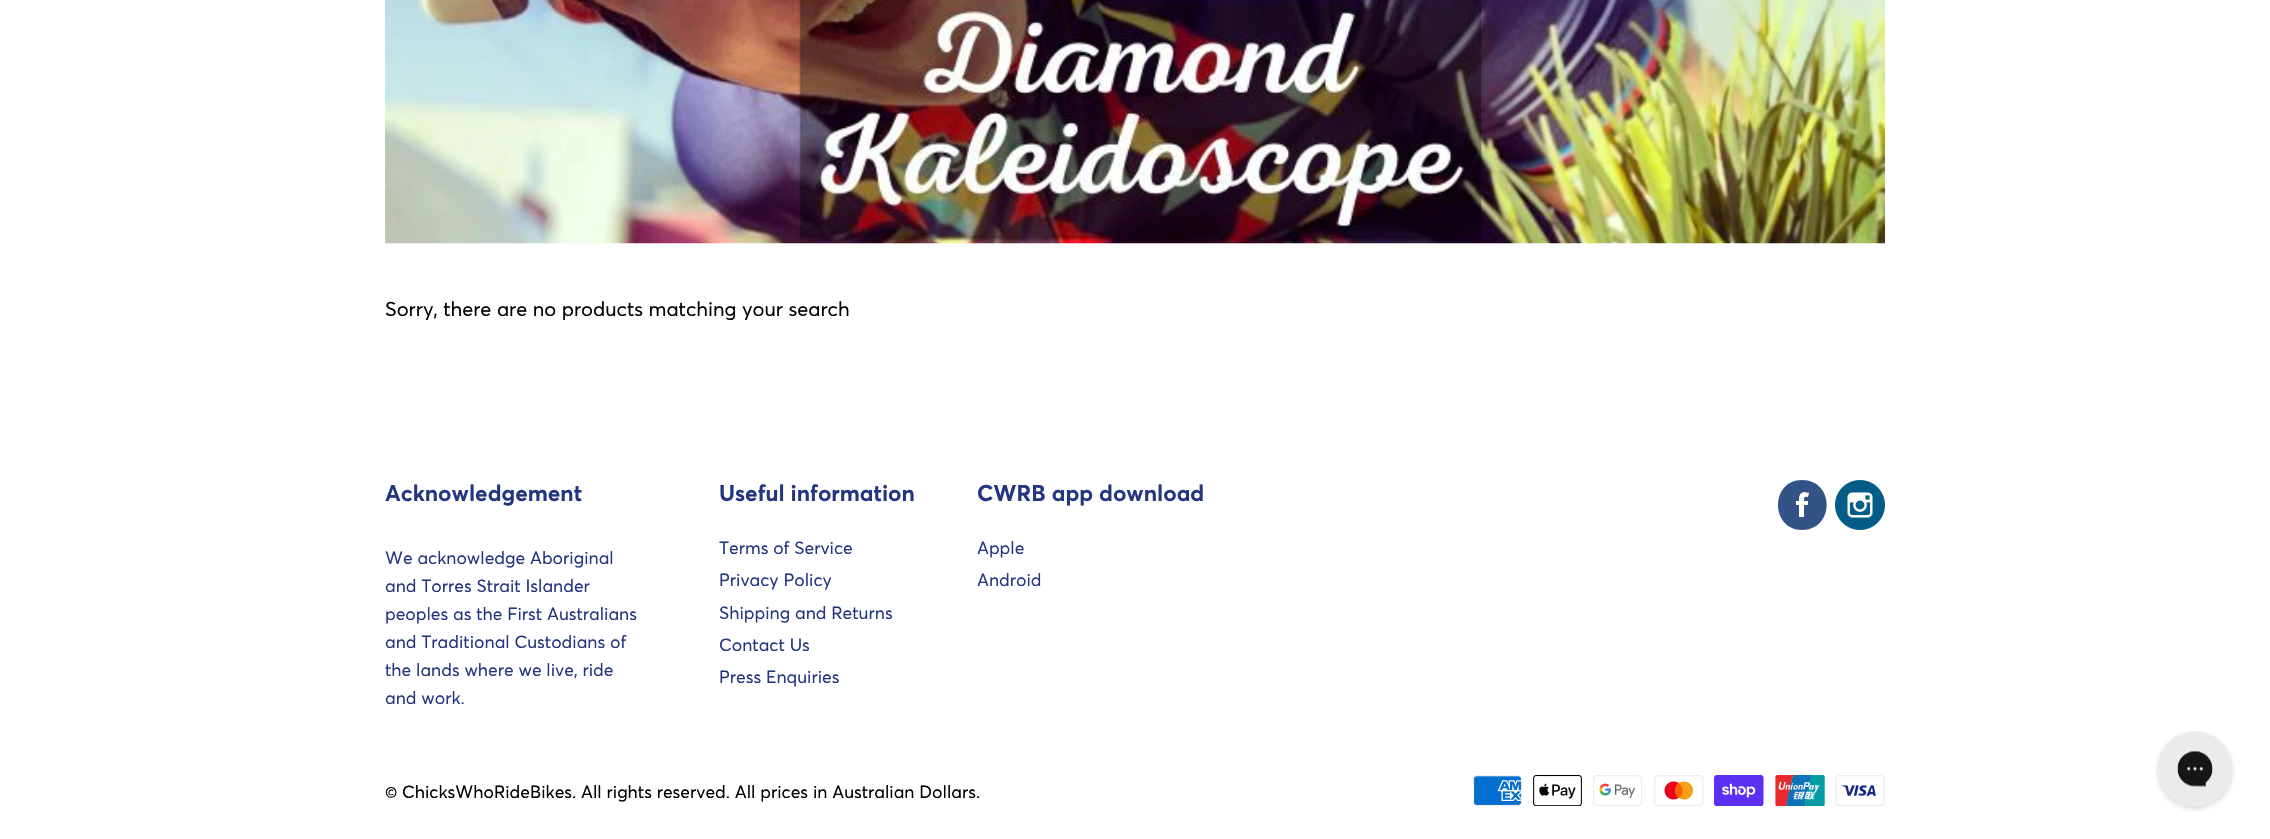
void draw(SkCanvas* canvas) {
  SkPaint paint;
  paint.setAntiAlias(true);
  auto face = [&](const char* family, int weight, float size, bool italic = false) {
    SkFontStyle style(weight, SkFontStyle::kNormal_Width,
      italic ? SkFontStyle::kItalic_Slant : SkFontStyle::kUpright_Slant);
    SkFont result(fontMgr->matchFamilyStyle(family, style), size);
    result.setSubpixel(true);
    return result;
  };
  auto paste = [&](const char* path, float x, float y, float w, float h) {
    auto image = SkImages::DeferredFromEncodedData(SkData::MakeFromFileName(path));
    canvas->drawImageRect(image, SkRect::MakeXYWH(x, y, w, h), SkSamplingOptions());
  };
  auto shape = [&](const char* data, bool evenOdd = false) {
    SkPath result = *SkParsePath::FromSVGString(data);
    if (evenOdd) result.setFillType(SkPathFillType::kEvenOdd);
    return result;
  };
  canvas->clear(0xffffffff);
  paste("img/1.png", 385, 0, 1500, 244);
  paint.setColor(0xff335387);
  canvas->drawPath(shape("M1802 480C1770 480 1770 530 1802 530C1835 530 1835 480 1802 480ZM1808 501V505H1804V517H1799V505H1796V501H1799C1799 497 1799 493 1804 492L1809 493L1808 497C1804 496 1804 497 1804 501Z"), paint);
  paste("img/2.png", 1835, 480, 50, 50);
  paste("img/3.png", 1473, 775, 49, 31);
  paste("img/4.png", 1533, 775, 49, 31);
  paste("img/5.png", 1593, 775, 49, 31);
  paste("img/6.png", 1654, 775, 50, 31);
  paste("img/7.png", 1714, 775, 50, 31);
  paste("img/8.png", 1775, 775, 50, 31);
  paste("img/9.png", 1835, 775, 50, 31);
  paste("img/10.png", 2155, 731, 80, 80);
  auto f0 = face("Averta", 400, 20);
  paint.setColor(0xff000000);
  canvas->drawString("Sorry, there are no products matching your search", 385, 316, f0, paint);
  auto f1 = face("Averta", 700, 22.5f);
  paint.setColor(0xff243680);
  canvas->drawString("Acknowledgement", 385, 501, f1, paint);
  auto f2 = face("Averta", 400, 17.5f);
  {
    const struct { const char* s; float x, y; } items[] = {
      {"We acknowledge Aboriginal", 385, 564},
      {"and Torres Strait Islander", 385, 592},
      {"peoples as the First Australians", 385, 620},
      {"and Traditional Custodians of", 385, 648},
      {"the lands where we live, ride", 385, 676},
      {"and work.", 385, 704},
    };
    for (auto [s, x, y] : items) {
      canvas->drawString(s, x, y, f2, paint);
    }
  }
  canvas->drawString("Useful information", 719, 501, f1, paint);
  {
    const struct { const char* s; float x, y; } items[] = {
      {"Terms of Service", 719, 554},
      {"Privacy Policy", 719, 586},
      {"Shipping and Returns", 719, 619},
      {"Contact Us", 719, 651},
      {"Press Enquiries", 719, 683},
    };
    for (auto [s, x, y] : items) {
      canvas->drawString(s, x, y, f2, paint);
    }
  }
  canvas->drawString("CWRB app download", 977, 501, f1, paint);
  canvas->drawString("Apple", 977, 554, f2, paint);
  canvas->drawString("Android", 977, 586, f2, paint);
  paint.setColor(0xff000000);
  canvas->drawString("© ChicksWhoRideBikes. All rights reserved. All prices in Australian Dollars.", 385, 798, f2, paint);
}
